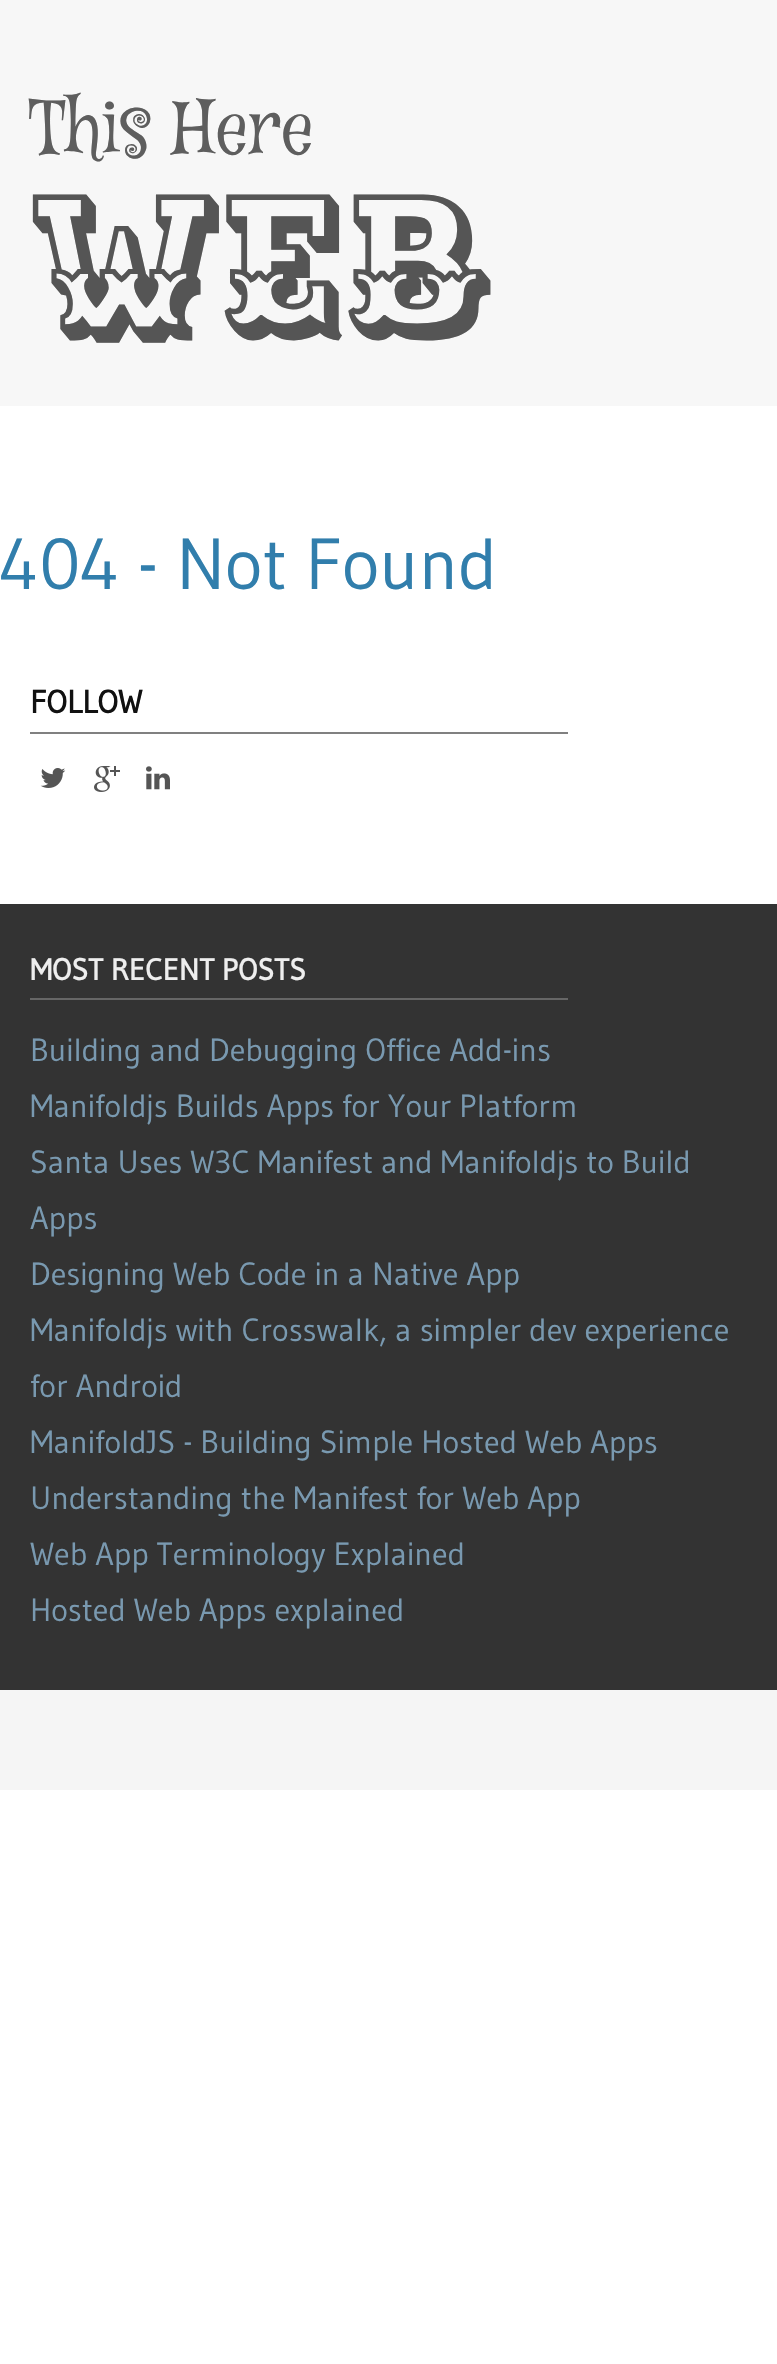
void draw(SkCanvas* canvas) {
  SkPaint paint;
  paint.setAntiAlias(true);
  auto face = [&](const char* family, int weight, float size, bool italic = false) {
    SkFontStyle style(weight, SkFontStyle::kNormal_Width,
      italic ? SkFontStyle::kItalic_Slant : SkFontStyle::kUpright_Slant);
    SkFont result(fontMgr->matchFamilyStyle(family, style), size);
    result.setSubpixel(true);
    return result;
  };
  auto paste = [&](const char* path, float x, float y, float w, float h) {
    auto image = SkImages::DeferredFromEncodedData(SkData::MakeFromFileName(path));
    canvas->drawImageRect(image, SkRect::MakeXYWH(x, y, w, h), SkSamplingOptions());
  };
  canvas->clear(0xffffffff);
  paint.setColor(0xfff7f7f7);
  canvas->drawRect(SkRect::MakeXYWH(0, 0, 777, 406), paint);
  paint.setColor(0xff808080);
  canvas->drawRect(SkRect::MakeXYWH(30, 732, 538, 2), paint);
  paste("img/1.png", 40, 768, 26, 20);
  paste("img/2.png", 94, 766, 26, 26);
  paste("img/3.png", 146, 766, 24, 24);
  {
    const struct { float x, y, w, h; SkColor color; } items[] = {
      {0, 904, 777, 786, 0xff333333},
      {30, 998, 538, 2, 0xff666666},
      {0, 1690, 777, 100, 0xfff5f5f5},
    };
    for (auto [x, y, w, h, color] : items) {
      paint.setColor(color);
      canvas->drawRect(SkRect::MakeXYWH(x, y, w, h), paint);
    }
  }
  auto f0 = face("Mystery Quest", 400, 72);
  paint.setColor(0xff5e5e5e);
  canvas->drawString("This Here", 30, 152, f0, paint);
  auto f1 = face("Ewert", 400, 192);
  paint.setColor(0xff555555);
  canvas->drawString("Web", 30, 329, f1, paint);
  auto f2 = face("Gudea", 400, 72);
  paint.setColor(0xff317eac);
  canvas->drawString("404 - Not Found", 0, 589, f2, paint);
  auto f3 = face("Gudea", 700, 32);
  paint.setColor(0xff111111);
  canvas->drawString("FOLLOW", 30, 713, f3, paint);
  auto f4 = face("Gudea", 700, 30);
  paint.setColor(0xffeeeeee);
  canvas->drawString("MOST RECENT POSTS", 30, 980, f4, paint);
  auto f5 = face("Gudea", 400, 32);
  paint.setColor(0xff7999b0);
  {
    const struct { const char* s; float x, y; } items[] = {
      {"Building and Debugging Office Add-ins", 30, 1061},
      {"Manifoldjs Builds Apps for Your Platform", 30, 1117},
      {"Santa Uses W3C Manifest and Manifoldjs to Build", 30, 1173},
      {"Apps", 30, 1229},
      {"Designing Web Code in a Native App", 30, 1285},
      {"Manifoldjs with Crosswalk, a simpler dev experience", 30, 1341},
      {"for Android", 30, 1397},
      {"ManifoldJS - Building Simple Hosted Web Apps", 30, 1453},
      {"Understanding the Manifest for Web App", 30, 1509},
      {"Web App Terminology Explained", 30, 1565},
      {"Hosted Web Apps explained", 30, 1621},
    };
    for (auto [s, x, y] : items) {
      canvas->drawString(s, x, y, f5, paint);
    }
  }
}
